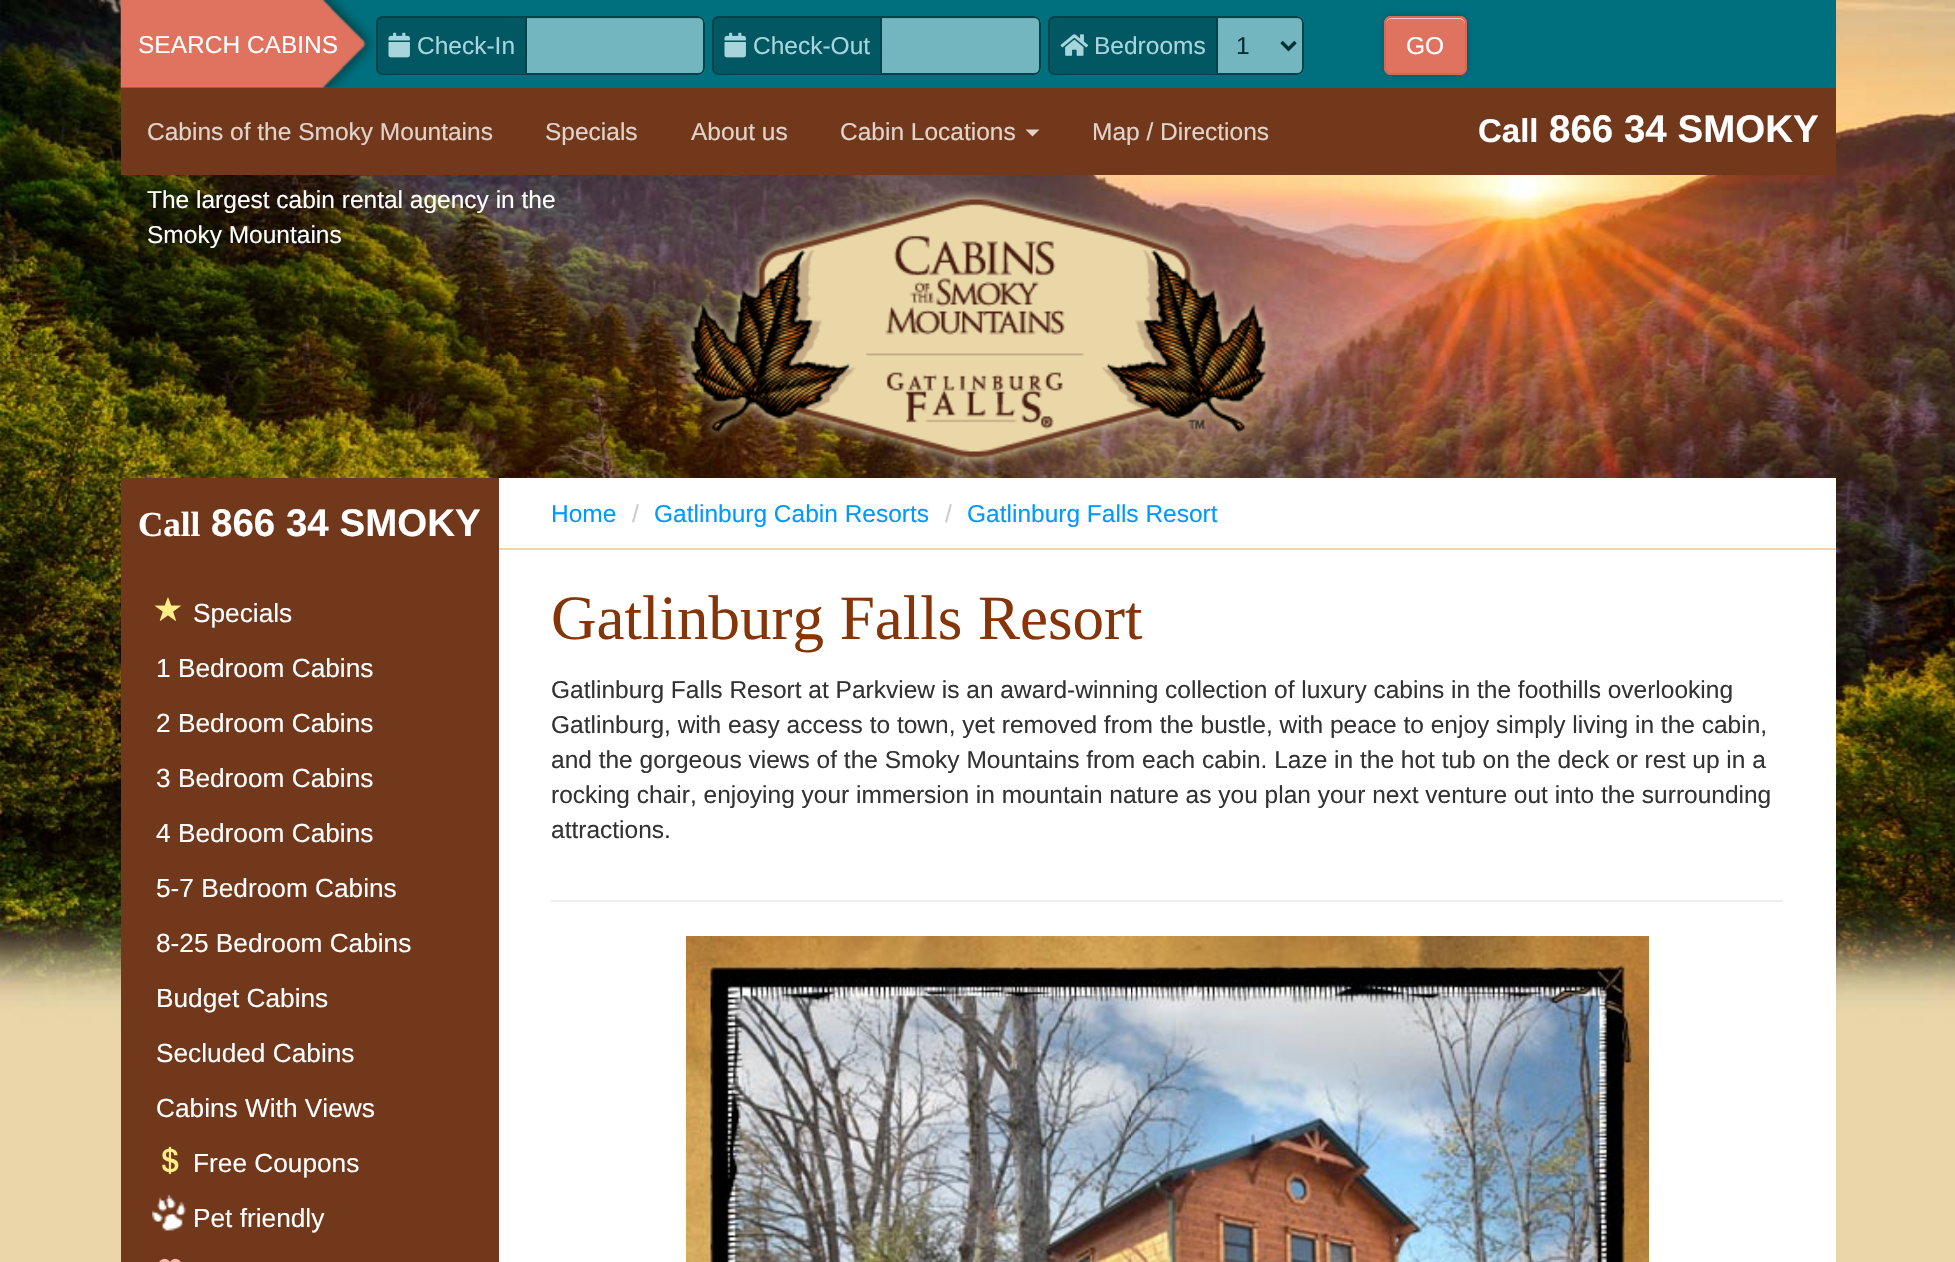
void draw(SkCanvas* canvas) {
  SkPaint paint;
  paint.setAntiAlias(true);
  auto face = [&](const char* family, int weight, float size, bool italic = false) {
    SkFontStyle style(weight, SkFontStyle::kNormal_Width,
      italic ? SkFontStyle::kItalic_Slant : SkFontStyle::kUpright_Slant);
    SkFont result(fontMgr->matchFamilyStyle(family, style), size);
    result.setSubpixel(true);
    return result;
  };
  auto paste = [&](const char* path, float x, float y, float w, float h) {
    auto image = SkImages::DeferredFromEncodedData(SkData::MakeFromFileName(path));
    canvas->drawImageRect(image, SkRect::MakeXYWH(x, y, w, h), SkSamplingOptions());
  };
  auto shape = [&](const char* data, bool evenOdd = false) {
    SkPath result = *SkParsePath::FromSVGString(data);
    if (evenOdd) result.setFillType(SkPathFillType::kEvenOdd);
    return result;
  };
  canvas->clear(0xffebd6a9);
  paste("img/1.png", 0, 0, 1955, 1025);
  paint.setColor(0xff71381c);
  canvas->drawRect(SkRect::MakeXYWH(121, 88, 1715, 87), paint);
  paint.setColor(0xff00707e);
  canvas->drawRect(SkRect::MakeXYWH(121, 0, 1715, 88), paint);
  paste("img/2.png", 120, 0, 256, 88);
  paint.setColor(0xff015863);
  canvas->drawPath(shape("M383 16H525V75H383C379 75 376 72 376 68V23C376 19 379 16 383 16Z"), paint);
  paint.setColor(0xff00434b);
  canvas->drawPath(shape("M383 16H525V75H383C379 75 376 72 376 68V23C376 19 379 16 383 16ZM383 18H525V74H383C380 74 378 71 378 68V23C378 20 380 18 383 18Z", true), paint);
  paste("img/3.png", 388, 32, 22, 26);
  paint.setColor(0xff74b6bf);
  canvas->drawPath(shape("M525 16H698C702 16 705 19 705 23V68C705 72 702 75 698 75H525Z"), paint);
  paint.setColor(0xff6ba8b1);
  canvas->drawPath(shape("M527 19H698C701 19 704 22 704 24C704 21 702 18 699 18H527Z"), paint);
  paint.setStroke(true);
  paint.setStrokeWidth(2);
  paint.setColor(0xff00434b);
  canvas->drawPath(shape("M526 17H698C701.5 17 704 19.5 704 23V68C704 71.5 701.5 74 698 74H526Z"), paint);
  paint.setStroke(false);
  paint.setColor(0xff015863);
  canvas->drawPath(shape("M719 16H880V75H719C715 75 712 72 712 68V23C712 19 715 16 719 16Z"), paint);
  paint.setColor(0xff00434b);
  canvas->drawPath(shape("M719 16H880V75H719C715 75 712 72 712 68V23C712 19 715 16 719 16ZM719 18H880V74H719C716 74 714 71 714 68V23C714 20 716 18 719 18Z", true), paint);
  paste("img/3.png", 724, 32, 22, 26);
  paint.setColor(0xff74b6bf);
  canvas->drawPath(shape("M880 16H1034C1038 16 1041 19 1041 23V68C1041 72 1038 75 1034 75H880Z"), paint);
  paint.setColor(0xff6ba8b1);
  canvas->drawPath(shape("M882 19H1034C1037 19 1040 22 1040 24V23C1040 20 1038 18 1035 18H882Z"), paint);
  paint.setStroke(true);
  paint.setColor(0xff00434b);
  canvas->drawPath(shape("M881 17H1034C1037.5 17 1040 19.5 1040 23V68C1040 71.5 1037.5 74 1034 74H881Z"), paint);
  paint.setStroke(false);
  paint.setColor(0xff015863);
  canvas->drawPath(shape("M1055 16H1216V75H1055C1051 75 1048 72 1048 68V23C1048 19 1051 16 1055 16Z"), paint);
  paint.setColor(0xff00434b);
  canvas->drawPath(shape("M1055 16H1216V75H1055C1051 75 1048 72 1048 68V23C1048 19 1051 16 1055 16ZM1055 18H1216V74H1055C1052 74 1050 71 1050 68V23C1050 20 1052 18 1055 18Z", true), paint);
  paste("img/4.png", 1060, 34, 29, 22);
  paint.setColor(0xff74b6bf);
  canvas->drawPath(shape("M1216 16H1297C1301 16 1304 19 1304 23V68C1304 72 1301 75 1297 75H1216Z"), paint);
  paint.setColor(0xff6ba8b1);
  canvas->drawPath(shape("M1218 19H1297C1300 19 1302 22 1302 24V23C1302 20 1300 18 1297 18H1218Z"), paint);
  paint.setStroke(true);
  paint.setColor(0xff00434b);
  canvas->drawPath(shape("M1217 17H1297C1300.5 17 1303 19.5 1303 23V68C1303 71.5 1300.5 74 1297 74H1217Z"), paint);
  paint.setStrokeWidth(3.5f);
  paint.setColor(0xff002e33);
  canvas->drawPath(shape("M1281.5 42L1288.5 49L1295.5 42"), paint);
  paint.setStroke(false);
  paint.setColor(0x33000000);
  paint.setMaskFilter(SkMaskFilter::MakeBlur(kNormal_SkBlurStyle, 4.5f));
  canvas->drawRoundRect(SkRect::MakeXYWH(1384, 16, 83, 59), 7, 7, paint);
  paint.setMaskFilter(nullptr);
  paint.setColor(0xffdf7360);
  canvas->drawRoundRect(SkRect::MakeXYWH(1384, 16, 83, 59), 7, 7, paint);
  paint.setColor(0xfff2c7bf);
  canvas->drawPath(shape("M1391 19H1460C1462 19 1465 22 1465 24C1465 15 1454 18 1448 18H1402C1397 18 1386 15 1386 24C1386 22 1388 19 1391 19Z"), paint);
  paint.setStroke(true);
  paint.setStrokeWidth(2);
  paint.setColor(0xffd86854);
  canvas->drawRoundRect(SkRect::MakeXYWH(1385, 17, 81, 57), 6, 6, paint);
  paint.setStroke(false);
  paint.setColor(0xffe1d2ca);
  canvas->drawPath(shape("M1025.5 129.5H1039.5L1032.5 136.5Z"), paint);
  paste("img/5.png", 683, 190, 590, 276);
  paint.setColor(0xffffffff);
  canvas->drawRect(SkRect::MakeXYWH(499, 478, 1337, 784), paint);
  paint.setColor(0xff71381c);
  canvas->drawRect(SkRect::MakeXYWH(121, 478, 378, 784), paint);
  paste("img/6.png", 154, 597, 27, 24);
  paste("img/7.png", 162, 1146, 17, 28);
  paste("img/8.png", 152, 1195, 34, 36);
  paste("img/9.png", 159, 1258, 22, 4);
  paint.setColor(0xffedd8a3);
  canvas->drawRect(SkRect::MakeXYWH(499, 548, 1337, 2), paint);
  paint.setColor(0xffeeeeee);
  canvas->drawRect(SkRect::MakeXYWH(551, 900, 1232, 2), paint);
  paste("img/10.png", 686, 936, 963, 326);
  auto f0 = face("Arimo", 400, 24.5f);
  paint.setColor(0xffffffff);
  canvas->drawString("SEARCH CABINS", 138, 53, f0, paint);
  paint.setColor(0xffa8d5db);
  {
    const struct { const char* s; float x, y; } items[] = {
      {"Check-In", 417, 54},
      {"Check-Out", 753, 54},
      {"Bedrooms", 1094, 54},
    };
    for (auto [s, x, y] : items) {
      canvas->drawString(s, x, y, f0, paint);
    }
  }
  paint.setColor(0xff002e33);
  canvas->drawString("1", 1236, 54, f0, paint);
  paint.setColor(0xffffffff);
  canvas->drawString("GO", 1406, 54, f0, paint);
  auto f1 = face("Arimo", 700, 33);
  canvas->drawString("Call", 1478, 142, f1, paint);
  auto f2 = face("Arimo", 700, 38.5f);
  canvas->drawString("866 34 SMOKY", 1549, 142, f2, paint);
  paint.setColor(0xffe1d2ca);
  {
    const struct { const char* s; float x, y; } items[] = {
      {"Cabins of the Smoky Mountains", 147, 140},
      {"Specials", 545, 140},
      {"About us", 691, 140},
      {"Cabin Locations", 840, 140},
      {"Map / Directions", 1092, 140},
    };
    for (auto [s, x, y] : items) {
      canvas->drawString(s, x, y, f0, paint);
    }
  }
  paint.setColor(0xffffffff);
  canvas->drawString("The largest cabin rental agency in the", 147, 208, f0, paint);
  canvas->drawString("Smoky Mountains", 147, 243, f0, paint);
  auto f3 = face("Liberation Serif", 700, 35);
  canvas->drawString("Call", 138, 536, f3, paint);
  canvas->drawString("866 34 SMOKY", 211, 536, f2, paint);
  auto f4 = face("Arimo", 400, 26.25f);
  {
    const struct { const char* s; float x, y; } items[] = {
      {"Specials", 193, 622},
      {"1 Bedroom Cabins", 156, 677},
      {"2 Bedroom Cabins", 156, 732},
      {"3 Bedroom Cabins", 156, 787},
      {"4 Bedroom Cabins", 156, 842},
      {"5-7 Bedroom Cabins", 156, 897},
      {"8-25 Bedroom Cabins", 156, 952},
      {"Budget Cabins", 156, 1007},
      {"Secluded Cabins", 156, 1062},
      {"Cabins With Views", 156, 1117},
      {"Free Coupons", 193, 1172},
      {"Pet friendly", 193, 1227},
    };
    for (auto [s, x, y] : items) {
      canvas->drawString(s, x, y, f4, paint);
    }
  }
  paint.setColor(0xff0099ff);
  canvas->drawString("Home", 551, 522, f0, paint);
  paint.setColor(0xffcccccc);
  canvas->drawString("/", 632, 522, f0, paint);
  paint.setColor(0xff0099ff);
  canvas->drawString("Gatlinburg Cabin Resorts", 654, 522, f0, paint);
  paint.setColor(0xffcccccc);
  canvas->drawString("/", 945, 522, f0, paint);
  paint.setColor(0xff0099ff);
  canvas->drawString("Gatlinburg Falls Resort", 967, 522, f0, paint);
  auto f5 = face("Liberation Serif", 400, 63);
  paint.setColor(0xff863508);
  canvas->drawString("Gatlinburg Falls Resort", 551, 639, f5, paint);
  paint.setColor(0xff333333);
  {
    const struct { const char* s; float x, y; } items[] = {
      {"Gatlinburg Falls Resort at Parkview is an award-winning collection of luxury cabins in the foothills overlooking", 551, 698},
      {"Gatlinburg, with easy access to town, yet removed from the bustle, with peace to enjoy simply living in the cabin,", 551, 733},
      {"and the gorgeous views of the Smoky Mountains from each cabin. Laze in the hot tub on the deck or rest up in a", 551, 768},
      {"rocking chair, enjoying your immersion in mountain nature as you plan your next venture out into the surrounding", 551, 803},
      {"attractions.", 551, 838},
    };
    for (auto [s, x, y] : items) {
      canvas->drawString(s, x, y, f0, paint);
    }
  }
}
